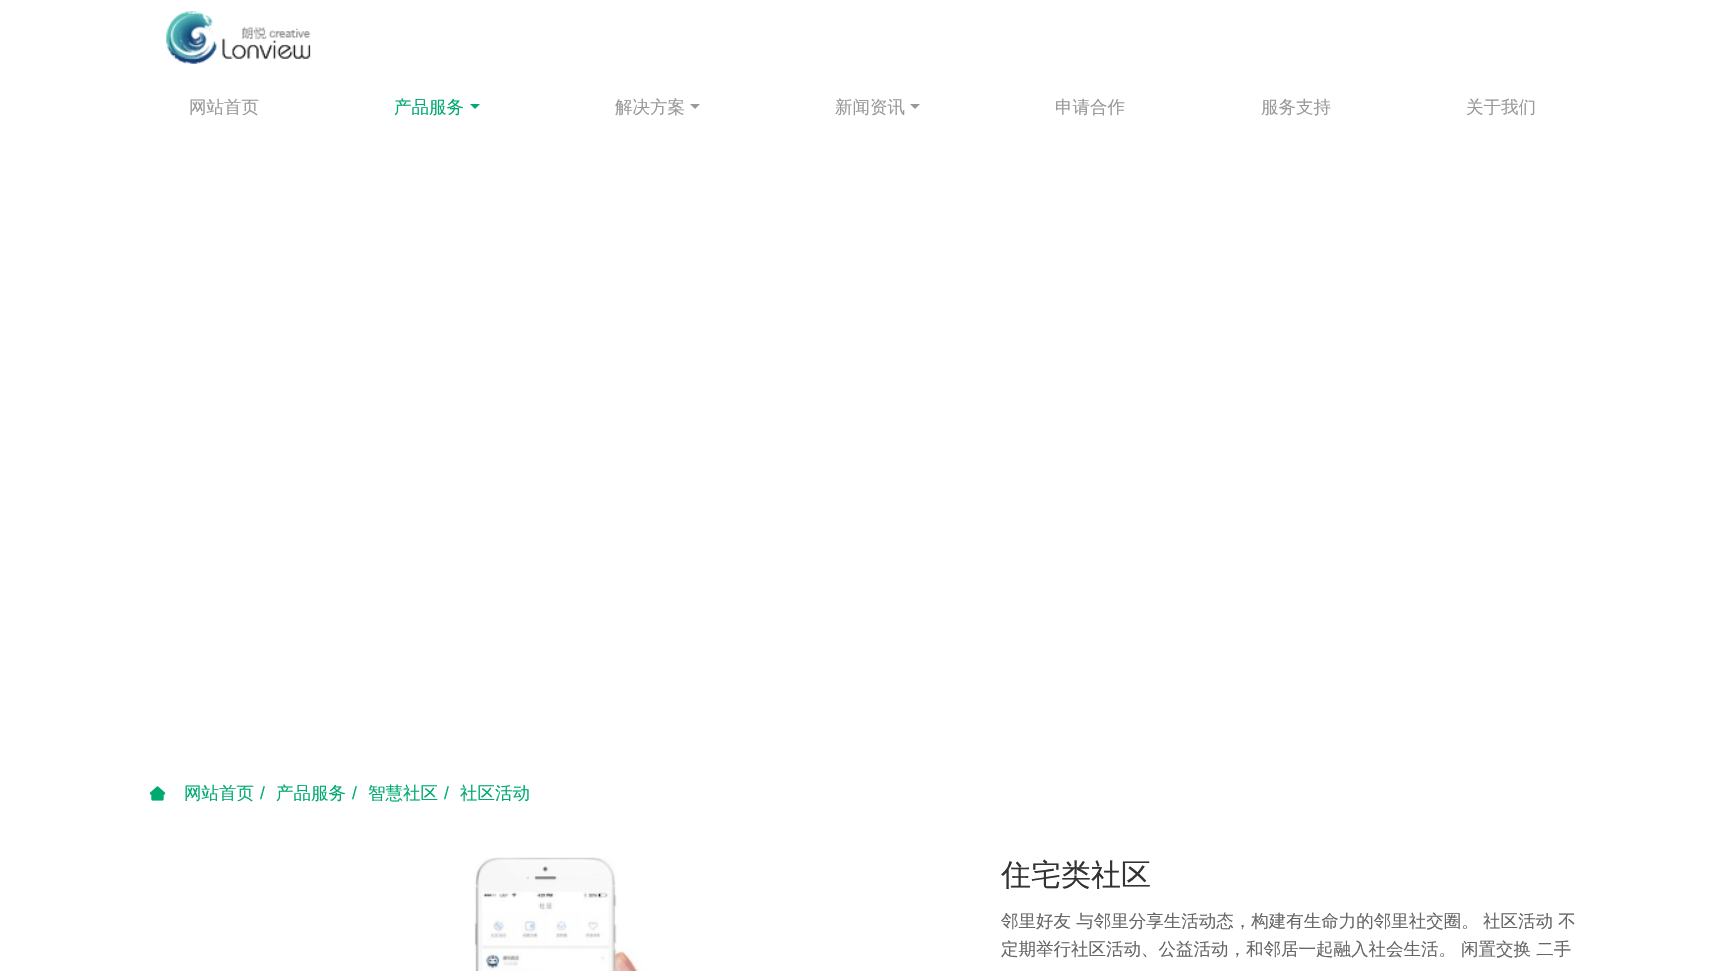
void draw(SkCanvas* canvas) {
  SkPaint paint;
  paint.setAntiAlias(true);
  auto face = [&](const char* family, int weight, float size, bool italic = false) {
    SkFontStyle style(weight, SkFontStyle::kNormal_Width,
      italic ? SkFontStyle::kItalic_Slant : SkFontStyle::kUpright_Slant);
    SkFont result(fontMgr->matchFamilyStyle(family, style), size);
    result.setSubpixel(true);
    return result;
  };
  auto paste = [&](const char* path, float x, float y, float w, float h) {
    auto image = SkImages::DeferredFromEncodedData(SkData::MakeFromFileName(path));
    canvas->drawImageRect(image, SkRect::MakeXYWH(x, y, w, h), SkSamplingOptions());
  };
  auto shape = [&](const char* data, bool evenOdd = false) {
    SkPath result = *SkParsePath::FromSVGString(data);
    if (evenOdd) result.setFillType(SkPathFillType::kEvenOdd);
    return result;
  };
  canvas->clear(0xffffffff);
  paste("img/1.png", 166, 11, 145, 53);
  paint.setColor(0xff00a971);
  canvas->drawPath(shape("M470 104H480L475 109Z"), paint);
  paint.setColor(0xff999999);
  canvas->drawPath(shape("M690 104H700L695 109Z"), paint);
  canvas->drawPath(shape("M910 104H920L915 109Z"), paint);
  paste("img/2.png", 149, 786, 17, 15);
  paste("img/3.png", 474, 857, 170, 114);
  auto f0 = face("WenQuanYi Zen Hei", 500, 17.5f);
  canvas->drawString("网站首页", 189, 113, f0, paint);
  paint.setColor(0xff00a971);
  canvas->drawString("产品服务", 394, 113, f0, paint);
  paint.setColor(0xff999999);
  {
    const struct { const char* s; float x, y; } items[] = {
      {"解决方案", 615, 113},
      {"新闻资讯", 835, 113},
      {"申请合作", 1055, 113},
      {"服务支持", 1261, 113},
      {"关于我们", 1466, 113},
    };
    for (auto [s, x, y] : items) {
      canvas->drawString(s, x, y, f0, paint);
    }
  }
  paint.setColor(0xff00a971);
  canvas->drawString("网站首页", 184, 799, f0, paint);
  auto f1 = face("Liberation Sans", 400, 17.5f);
  canvas->drawString("/", 260, 799, f1, paint);
  canvas->drawString("产品服务", 276, 799, f0, paint);
  canvas->drawString("/", 352, 799, f1, paint);
  canvas->drawString("智慧社区", 368, 799, f0, paint);
  canvas->drawString("/", 444, 799, f1, paint);
  canvas->drawString("社区活动", 460, 799, f0, paint);
  auto f2 = face("WenQuanYi Zen Hei", 500, 30);
  paint.setColor(0xff333333);
  canvas->drawString("住宅类社区", 1001, 885, f2, paint);
  paint.setColor(0xff666666);
  {
    const struct { const char* s; float x, y; } items[] = {
      {"邻里好友 与邻里分享生活动态，构建有生命力的邻里社交圈。", 1001, 927},
      {"社区活动 不", 1483, 927},
      {"定期举行社区活动、公益活动，和邻居一起融入社会生活。", 1001, 955},
      {"闲置交换 二手", 1461, 955},
    };
    for (auto [s, x, y] : items) {
      canvas->drawString(s, x, y, f0, paint);
    }
  }
}
